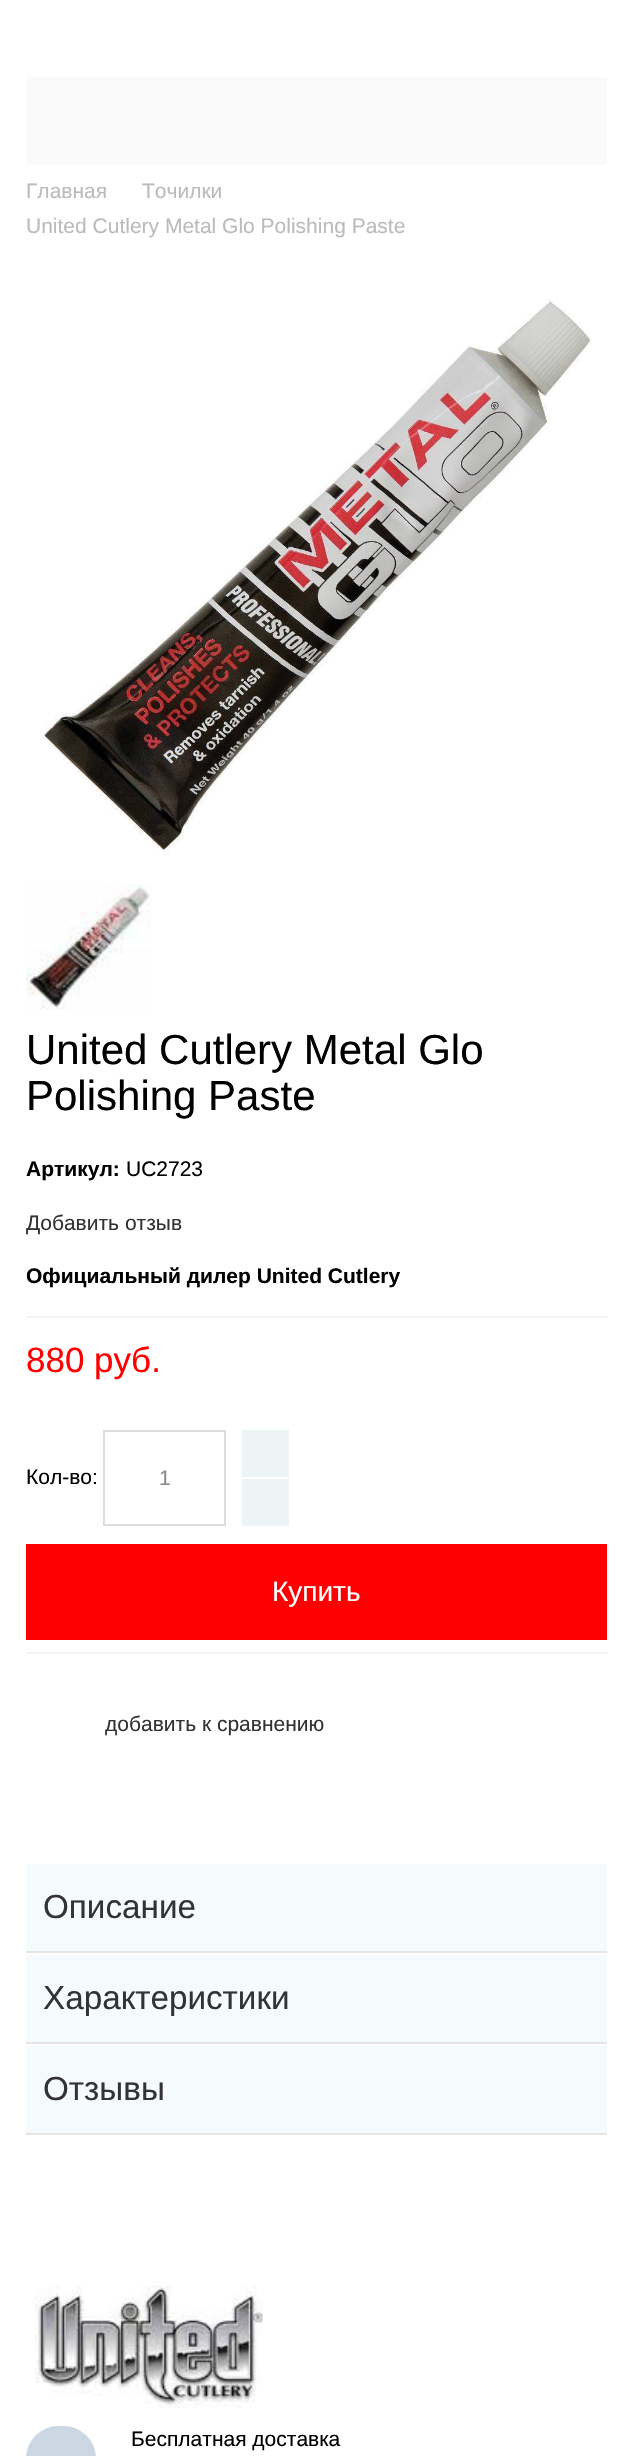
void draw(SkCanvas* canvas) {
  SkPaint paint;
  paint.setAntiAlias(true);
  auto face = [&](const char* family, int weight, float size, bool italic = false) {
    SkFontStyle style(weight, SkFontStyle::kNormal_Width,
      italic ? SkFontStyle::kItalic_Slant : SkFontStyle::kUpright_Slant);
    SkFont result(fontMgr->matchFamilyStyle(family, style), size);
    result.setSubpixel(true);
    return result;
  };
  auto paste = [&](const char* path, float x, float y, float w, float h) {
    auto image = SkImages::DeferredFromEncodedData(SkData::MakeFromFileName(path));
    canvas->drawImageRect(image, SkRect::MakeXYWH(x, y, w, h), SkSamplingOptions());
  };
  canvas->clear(0xffffffff);
  paint.setColor(0xfffafafa);
  canvas->drawRect(SkRect::MakeXYWH(26, 77, 581, 88), paint);
  paste("img/1.png", 40, 299, 552, 553);
  paste("img/2.png", 26, 884, 126, 126);
  paint.setColor(0xfff5f5f5);
  canvas->drawRect(SkRect::MakeXYWH(26, 1316, 581, 2), paint);
  canvas->drawRect(SkRect::MakeXYWH(26, 1652, 581, 2), paint);
  paint.setStroke(true);
  paint.setStrokeWidth(2);
  paint.setColor(0xffdddddd);
  canvas->drawRect(SkRect::MakeXYWH(104, 1431, 121, 94), paint);
  paint.setStroke(false);
  {
    const struct { float x, y, w, h; SkColor color; } items[] = {
      {242, 1430, 47, 47, 0xffedf4f6},
      {242, 1479, 47, 47, 0xffedf4f6},
      {26, 1544, 581, 96, 0xffff0000},
      {26, 1864, 581, 87, 0xfff5fafc},
      {26, 1951, 581, 2, 0xffe5e5e5},
      {26, 1955, 581, 87, 0xfff5fafc},
      {26, 2042, 581, 2, 0xffe5e5e5},
      {26, 2046, 581, 87, 0xfff5fafc},
      {26, 2133, 581, 2, 0xffe5e5e5},
    };
    for (auto [x, y, w, h, color] : items) {
      paint.setColor(color);
      canvas->drawRect(SkRect::MakeXYWH(x, y, w, h), paint);
    }
  }
  paste("img/3.png", 35, 2285, 228, 123);
  paint.setColor(0xffcbd7e2);
  canvas->drawRoundRect(SkRect::MakeXYWH(26, 2426, 70, 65), 35, 35, paint);
  auto f0 = face("Liberation Sans", 400, 21);
  paint.setColor(0xffbbbbbb);
  {
    const struct { const char* s; float x, y; } items[] = {
      {"Главная", 26, 198},
      {"Точилки", 142, 198},
      {"United Cutlery Metal Glo Polishing Paste", 26, 233},
    };
    for (auto [s, x, y] : items) {
      canvas->drawString(s, x, y, f0, paint);
    }
  }
  auto f1 = face("Liberation Sans", 400, 42);
  paint.setColor(0xff000000);
  canvas->drawString("United Cutlery Metal Glo", 26, 1064, f1, paint);
  canvas->drawString("Polishing Paste", 26, 1110, f1, paint);
  auto f2 = face("Liberation Sans", 700, 21);
  canvas->drawString("Артикул:", 26, 1176, f2, paint);
  canvas->drawString("UC2723", 126, 1176, f0, paint);
  paint.setColor(0xff333333);
  canvas->drawString("Добавить отзыв", 26, 1230, f0, paint);
  paint.setColor(0xff000000);
  canvas->drawString("Официальный дилер United Cutlery", 26, 1283, f2, paint);
  auto f3 = face("Liberation Sans", 400, 35);
  paint.setColor(0xffff0000);
  canvas->drawString("880 руб.", 26, 1372, f3, paint);
  paint.setColor(0xff000000);
  canvas->drawString("Кол-во:", 26, 1484, f0, paint);
  paint.setColor(0xff888888);
  canvas->drawString("1", 159, 1485, f0, paint);
  auto f4 = face("Liberation Sans", 400, 28);
  paint.setColor(0xffffffff);
  canvas->drawString("Купить", 272, 1601, f4, paint);
  paint.setColor(0xff333333);
  canvas->drawString("добавить к сравнению", 105, 1731, f0, paint);
  auto f5 = face("Liberation Sans", 400, 33.25f);
  {
    const struct { const char* s; float x, y; } items[] = {
      {"Описание", 43, 1918},
      {"Характеристики", 43, 2009},
      {"Отзывы", 43, 2100},
    };
    for (auto [s, x, y] : items) {
      canvas->drawString(s, x, y, f5, paint);
    }
  }
  paint.setColor(0xff000000);
  canvas->drawString("Бесплатная доставка", 131, 2446, f0, paint);
}
